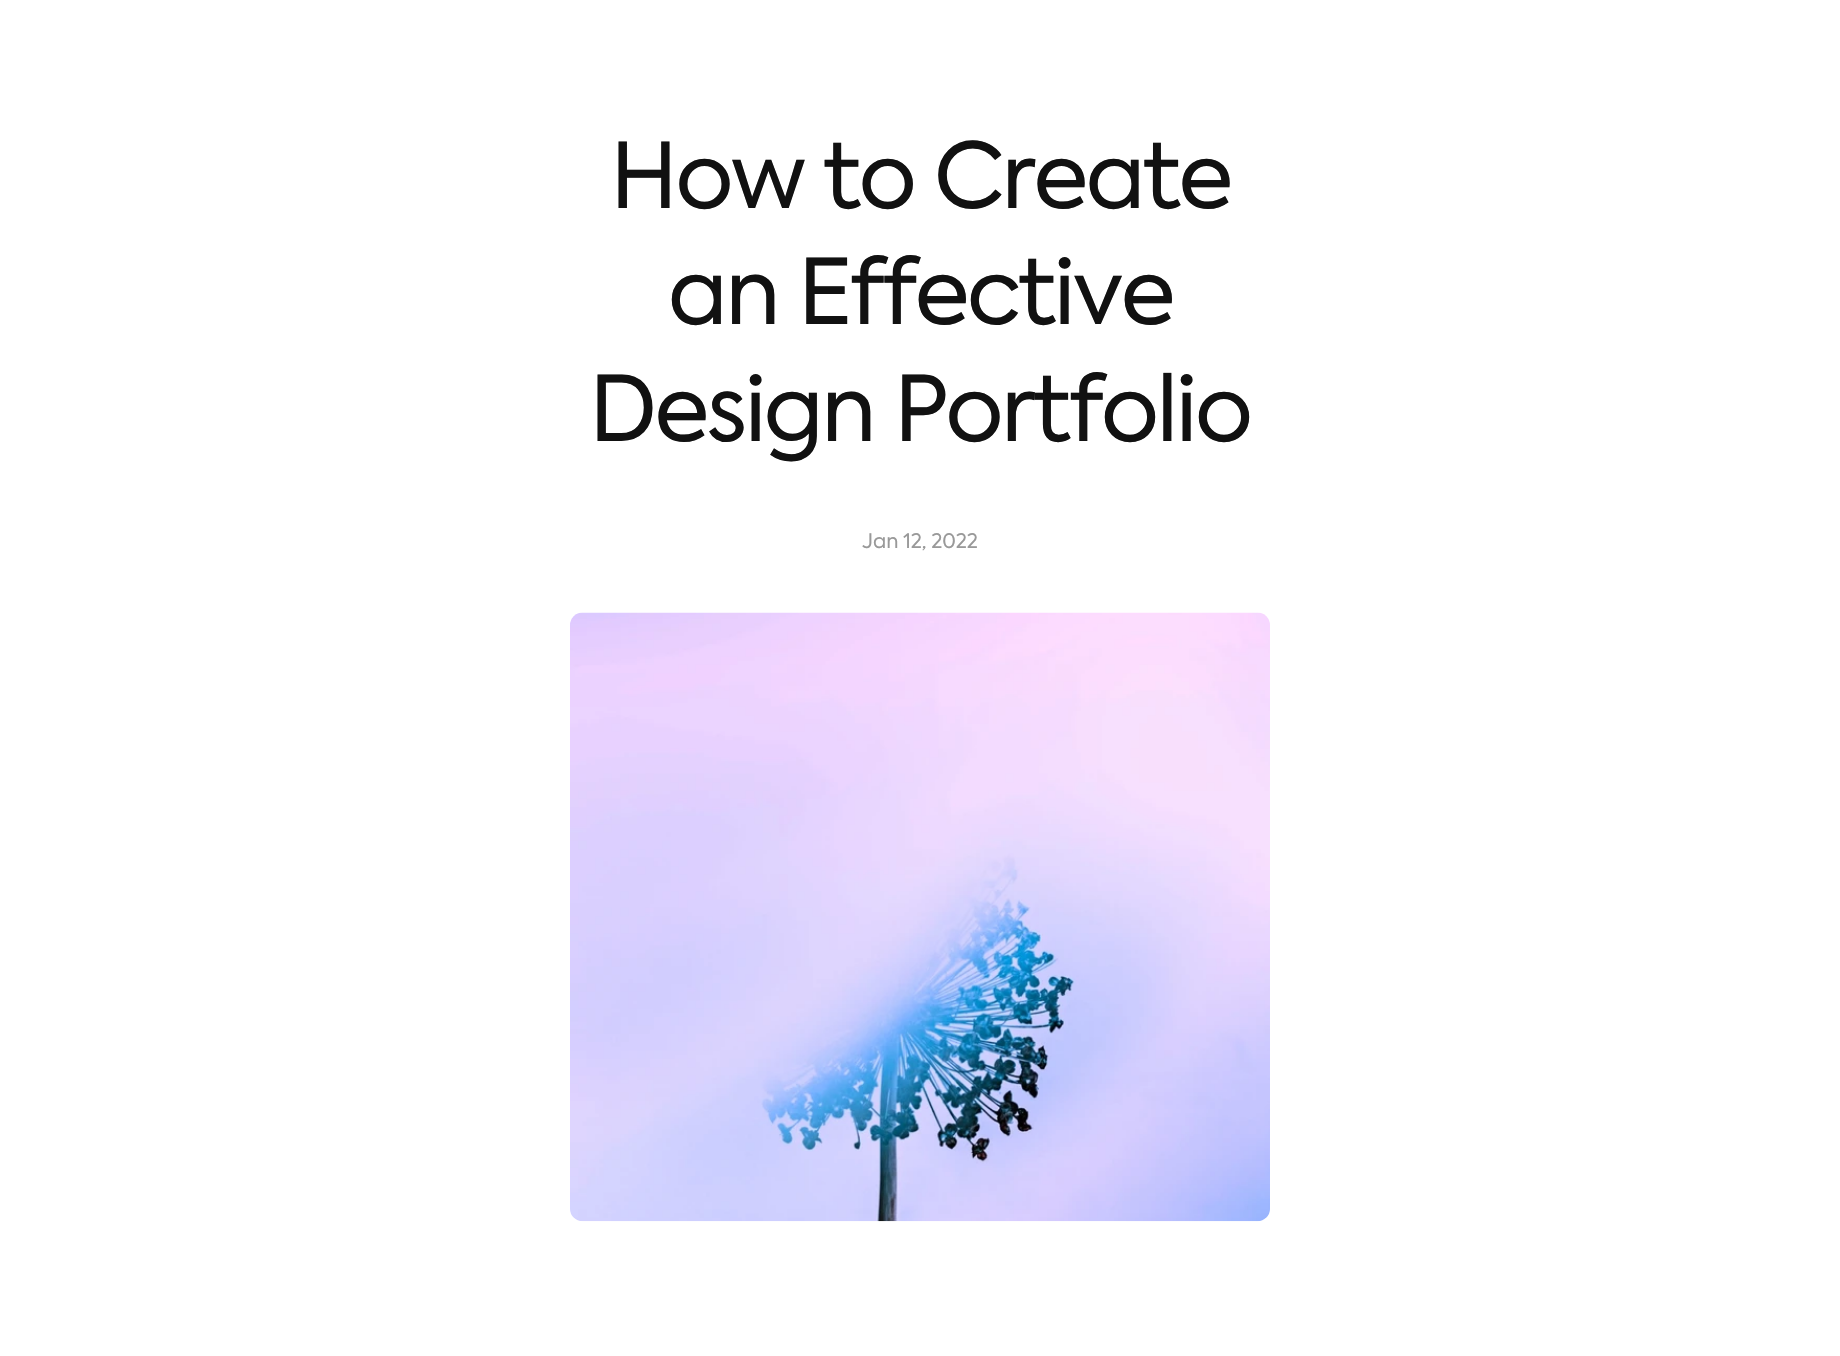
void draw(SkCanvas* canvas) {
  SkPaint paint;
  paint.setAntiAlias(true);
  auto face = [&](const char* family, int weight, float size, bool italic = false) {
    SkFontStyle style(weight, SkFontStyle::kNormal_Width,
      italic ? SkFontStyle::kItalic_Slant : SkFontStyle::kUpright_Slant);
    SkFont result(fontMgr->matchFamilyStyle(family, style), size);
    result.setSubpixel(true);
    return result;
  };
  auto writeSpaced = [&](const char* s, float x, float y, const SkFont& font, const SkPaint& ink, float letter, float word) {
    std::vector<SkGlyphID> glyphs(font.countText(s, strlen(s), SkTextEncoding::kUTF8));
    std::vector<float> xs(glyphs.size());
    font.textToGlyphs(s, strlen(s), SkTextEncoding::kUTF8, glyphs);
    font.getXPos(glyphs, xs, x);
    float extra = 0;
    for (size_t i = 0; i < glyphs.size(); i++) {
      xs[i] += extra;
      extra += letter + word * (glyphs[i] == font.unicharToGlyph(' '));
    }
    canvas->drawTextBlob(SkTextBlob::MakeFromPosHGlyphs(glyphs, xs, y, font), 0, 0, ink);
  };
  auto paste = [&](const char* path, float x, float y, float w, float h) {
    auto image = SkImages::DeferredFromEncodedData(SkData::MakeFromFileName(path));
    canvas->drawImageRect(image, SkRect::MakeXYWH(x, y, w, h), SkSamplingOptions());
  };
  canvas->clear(0xffffffff);
  paste("img/1.png", 570, 612, 700, 610);
  auto f0 = face("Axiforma", 400, 90);
  paint.setColor(0xff111111);
  {
    const struct { const char* s; float x, y; } items[] = {
      {"How to Create", 610, 208},
      {"an Effective", 668, 324},
      {"Design Portfolio", 589, 441},
    };
    for (auto [s, x, y] : items) {
      writeSpaced(s, x, y, f0, paint, -2.5f, 0);
    }
  }
  auto f1 = face("Axiforma", 400, 20);
  paint.setColor(0xff999999);
  writeSpaced("Jan 12, 2022", 862, 548, f1, paint, -0.1f, 0);
}
